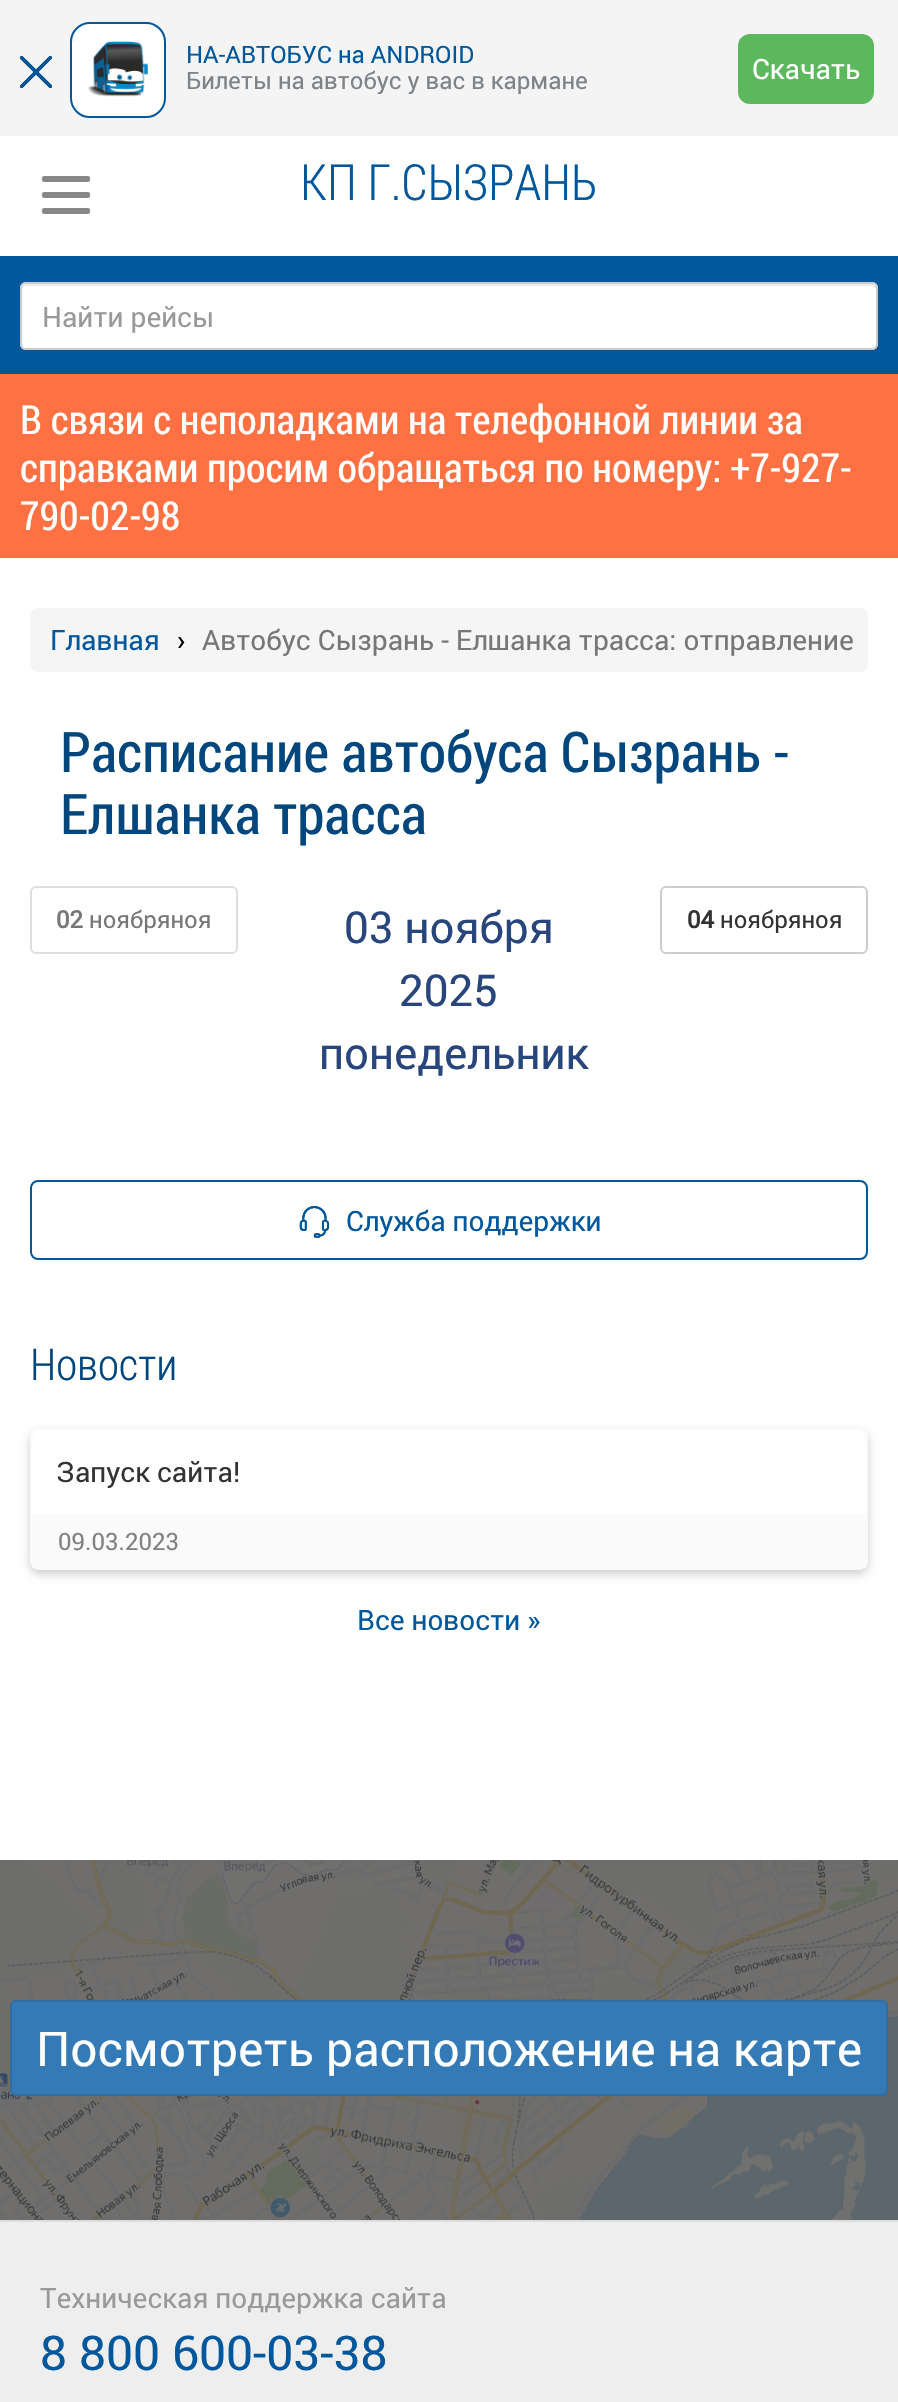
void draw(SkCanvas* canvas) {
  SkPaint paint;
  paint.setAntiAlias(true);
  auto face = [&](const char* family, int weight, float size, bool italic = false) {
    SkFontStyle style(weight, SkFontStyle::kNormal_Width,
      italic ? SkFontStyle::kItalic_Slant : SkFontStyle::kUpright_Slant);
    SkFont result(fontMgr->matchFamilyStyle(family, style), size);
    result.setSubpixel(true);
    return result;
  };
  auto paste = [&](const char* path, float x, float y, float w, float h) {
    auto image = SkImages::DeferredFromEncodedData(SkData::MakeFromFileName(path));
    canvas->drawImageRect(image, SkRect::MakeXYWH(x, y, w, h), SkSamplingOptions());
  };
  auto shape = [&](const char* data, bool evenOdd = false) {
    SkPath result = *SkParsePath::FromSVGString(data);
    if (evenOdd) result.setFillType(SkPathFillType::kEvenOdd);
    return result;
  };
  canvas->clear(0xffffffff);
  paint.setColor(0xfff4f4f4);
  canvas->drawRect(SkRect::MakeXYWH(0, 0, 898, 136), paint);
  paste("img/1.png", 20, 56, 32, 32);
  paint.setColor(0xffffffff);
  canvas->drawRoundRect(SkRect::MakeXYWH(71, 23, 94, 94), 19, 19, paint);
  paint.setStroke(true);
  paint.setStrokeWidth(2);
  paint.setColor(0xff00579b);
  canvas->drawRoundRect(SkRect::MakeXYWH(71, 23, 94, 94), 19, 19, paint);
  paste("img/2.png", 88, 41, 60, 56);
  paint.setStroke(false);
  paint.setColor(0xff5cb85d);
  canvas->drawRoundRect(SkRect::MakeXYWH(738, 34, 136, 70), 12, 12, paint);
  paint.setColor(0xff888888);
  canvas->drawRoundRect(SkRect::MakeXYWH(42, 176, 48, 6), 2, 2, paint);
  canvas->drawRoundRect(SkRect::MakeXYWH(42, 192, 48, 6), 2, 2, paint);
  canvas->drawRoundRect(SkRect::MakeXYWH(42, 208, 48, 6), 2, 2, paint);
  paint.setColor(0xff01579b);
  canvas->drawRect(SkRect::MakeXYWH(0, 256, 898, 118), paint);
  paint.setColor(0xffffffff);
  canvas->drawRoundRect(SkRect::MakeXYWH(20, 282, 858, 68), 6, 6, paint);
  paint.setColor(0xffececec);
  canvas->drawPath(shape("M26 286H872C874 286 876 288 876 290V288C876 286 874 284 872 284H26C24 284 22 286 22 288V290C22 288 24 286 26 286Z"), paint);
  paint.setStroke(true);
  paint.setColor(0xffcccccc);
  canvas->drawRoundRect(SkRect::MakeXYWH(21, 283, 856, 66), 5, 5, paint);
  paint.setStroke(false);
  paint.setColor(0xffff7043);
  canvas->drawRect(SkRect::MakeXYWH(0, 374, 898, 184), paint);
  paint.setColor(0xfff5f5f5);
  canvas->drawRoundRect(SkRect::MakeXYWH(30, 608, 838, 64), 8, 8, paint);
  paint.setStroke(true);
  paint.setColor(0xffdedede);
  canvas->drawRoundRect(SkRect::MakeXYWH(31, 887, 206, 66), 5, 5, paint);
  paint.setColor(0xffcccccc);
  canvas->drawRoundRect(SkRect::MakeXYWH(661, 887, 206, 66), 5, 5, paint);
  paint.setColor(0xff01579b);
  canvas->drawRoundRect(SkRect::MakeXYWH(31, 1181, 836, 78), 7, 7, paint);
  paste("img/3.png", 299, 1206, 31, 32);
  canvas->save();
  canvas->clipPath(shape("M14 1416H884V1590H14ZM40 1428H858C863.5 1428 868 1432.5 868 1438V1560C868 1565.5 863.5 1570 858 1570H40C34.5 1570 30 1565.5 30 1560V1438C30 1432.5 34.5 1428 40 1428Z", true), true);
  paint.setStroke(false);
  paint.setColor(0x33000000);
  paint.setMaskFilter(SkMaskFilter::MakeBlur(kNormal_SkBlurStyle, 5));
  canvas->drawRoundRect(SkRect::MakeXYWH(30, 1432, 838, 142), 10, 10, paint);
  paint.setMaskFilter(nullptr);
  canvas->restore();
  paint.setStroke(true);
  paint.setColor(0xfffafafa);
  canvas->drawRoundRect(SkRect::MakeXYWH(31, 1429, 836, 140), 9, 9, paint);
  paint.setStroke(false);
  canvas->drawRect(SkRect::MakeXYWH(32, 1514, 834, 54), paint);
  paste("img/4.png", 0, 1860, 898, 360);
  paint.setColor(0xff337ab7);
  canvas->drawRoundRect(SkRect::MakeXYWH(11, 2001, 876, 94), 5, 5, paint);
  paint.setStroke(true);
  paint.setColor(0xff2e6da4);
  canvas->drawRoundRect(SkRect::MakeXYWH(11, 2001, 876, 94), 5, 5, paint);
  paint.setStroke(false);
  paint.setColor(0xffeeeeee);
  canvas->drawRect(SkRect::MakeXYWH(0, 2222, 898, 180), paint);
  paint.setColor(0xffdddddd);
  canvas->drawRect(SkRect::MakeXYWH(0, 2220, 898, 2), paint);
  auto f0 = face("Roboto", 400, 24);
  paint.setColor(0xff01579b);
  canvas->drawString("НА-АВТОБУС на ANDROID", 186, 63, f0, paint);
  paint.setColor(0xff7d8388);
  canvas->drawString("Билеты на автобус у вас в кармане", 186, 89, f0, paint);
  auto f1 = face("Roboto", 400, 28);
  paint.setColor(0xffffffff);
  canvas->drawString("Скачать", 752, 79, f1, paint);
  auto f2 = face("Roboto Condensed", 300, 50);
  paint.setColor(0xff01579b);
  canvas->drawString("КП Г.СЫЗРАНЬ", 300, 200, f2, paint);
  paint.setColor(0xff999999);
  canvas->drawString("Найти рейсы", 42, 327, f1, paint);
  auto f3 = face("Roboto Condensed", 400, 40);
  paint.setColor(0xffffffff);
  {
    const struct { const char* s; float x, y; } items[] = {
      {"В связи с неполадками на телефонной линии за", 20, 434},
      {"справками просим обращаться по номеру: +7-927-", 20, 482},
      {"790-02-98", 20, 530},
    };
    for (auto [s, x, y] : items) {
      canvas->drawString(s, x, y, f3, paint);
    }
  }
  paint.setColor(0xff01579b);
  canvas->drawString("Главная", 50, 650, f1, paint);
  paint.setColor(0xff000000);
  canvas->drawString("›", 177, 650, f1, paint);
  paint.setColor(0xff777777);
  canvas->drawString("Автобус Сызрань - Елшанка трасса: отправление", 202, 650, f1, paint);
  auto f4 = face("Roboto Condensed", 400, 56);
  paint.setColor(0xff01467c);
  canvas->drawString("Расписание автобуса Сызрань -", 60, 772, f4, paint);
  canvas->drawString("Елшанка трасса", 60, 834, f4, paint);
  auto f5 = face("Roboto", 700, 24);
  paint.setColor(0xff777777);
  canvas->drawString("02", 56, 928, f5, paint);
  canvas->drawString("ноябряноя", 89, 928, f0, paint);
  auto f6 = face("Roboto", 400, 44);
  paint.setColor(0xff28467c);
  {
    const struct { const char* s; float x, y; } items[] = {
      {"03 ноября", 344, 943},
      {"2025", 399, 1006},
      {"понедельник", 319, 1069},
    };
    for (auto [s, x, y] : items) {
      canvas->drawString(s, x, y, f6, paint);
    }
  }
  paint.setColor(0xff333333);
  canvas->drawString("04", 687, 928, f5, paint);
  canvas->drawString("ноябряноя", 720, 928, f0, paint);
  paint.setColor(0xff01579b);
  canvas->drawString("Служба поддержки", 346, 1231, f1, paint);
  auto f7 = face("Roboto Condensed", 300, 44);
  paint.setColor(0xff01467c);
  canvas->drawString("Новости", 30, 1380, f7, paint);
  paint.setColor(0xff333333);
  canvas->drawString("Запуск сайта!", 56, 1482, f1, paint);
  paint.setColor(0xff818181);
  canvas->drawString("09.03.2023", 58, 1550, f0, paint);
  paint.setColor(0xff01579b);
  canvas->drawString("Все новости »", 357, 1630, f1, paint);
  auto f8 = face("Roboto", 400, 48);
  paint.setColor(0xffffffff);
  canvas->drawString("Посмотреть расположение на карте", 36, 2066, f8, paint);
  paint.setColor(0xff999999);
  canvas->drawString("Техническая поддержка сайта", 40, 2308, f1, paint);
  paint.setColor(0xff01579b);
  canvas->drawString("8 800 600-03-38", 40, 2370, f8, paint);
}
